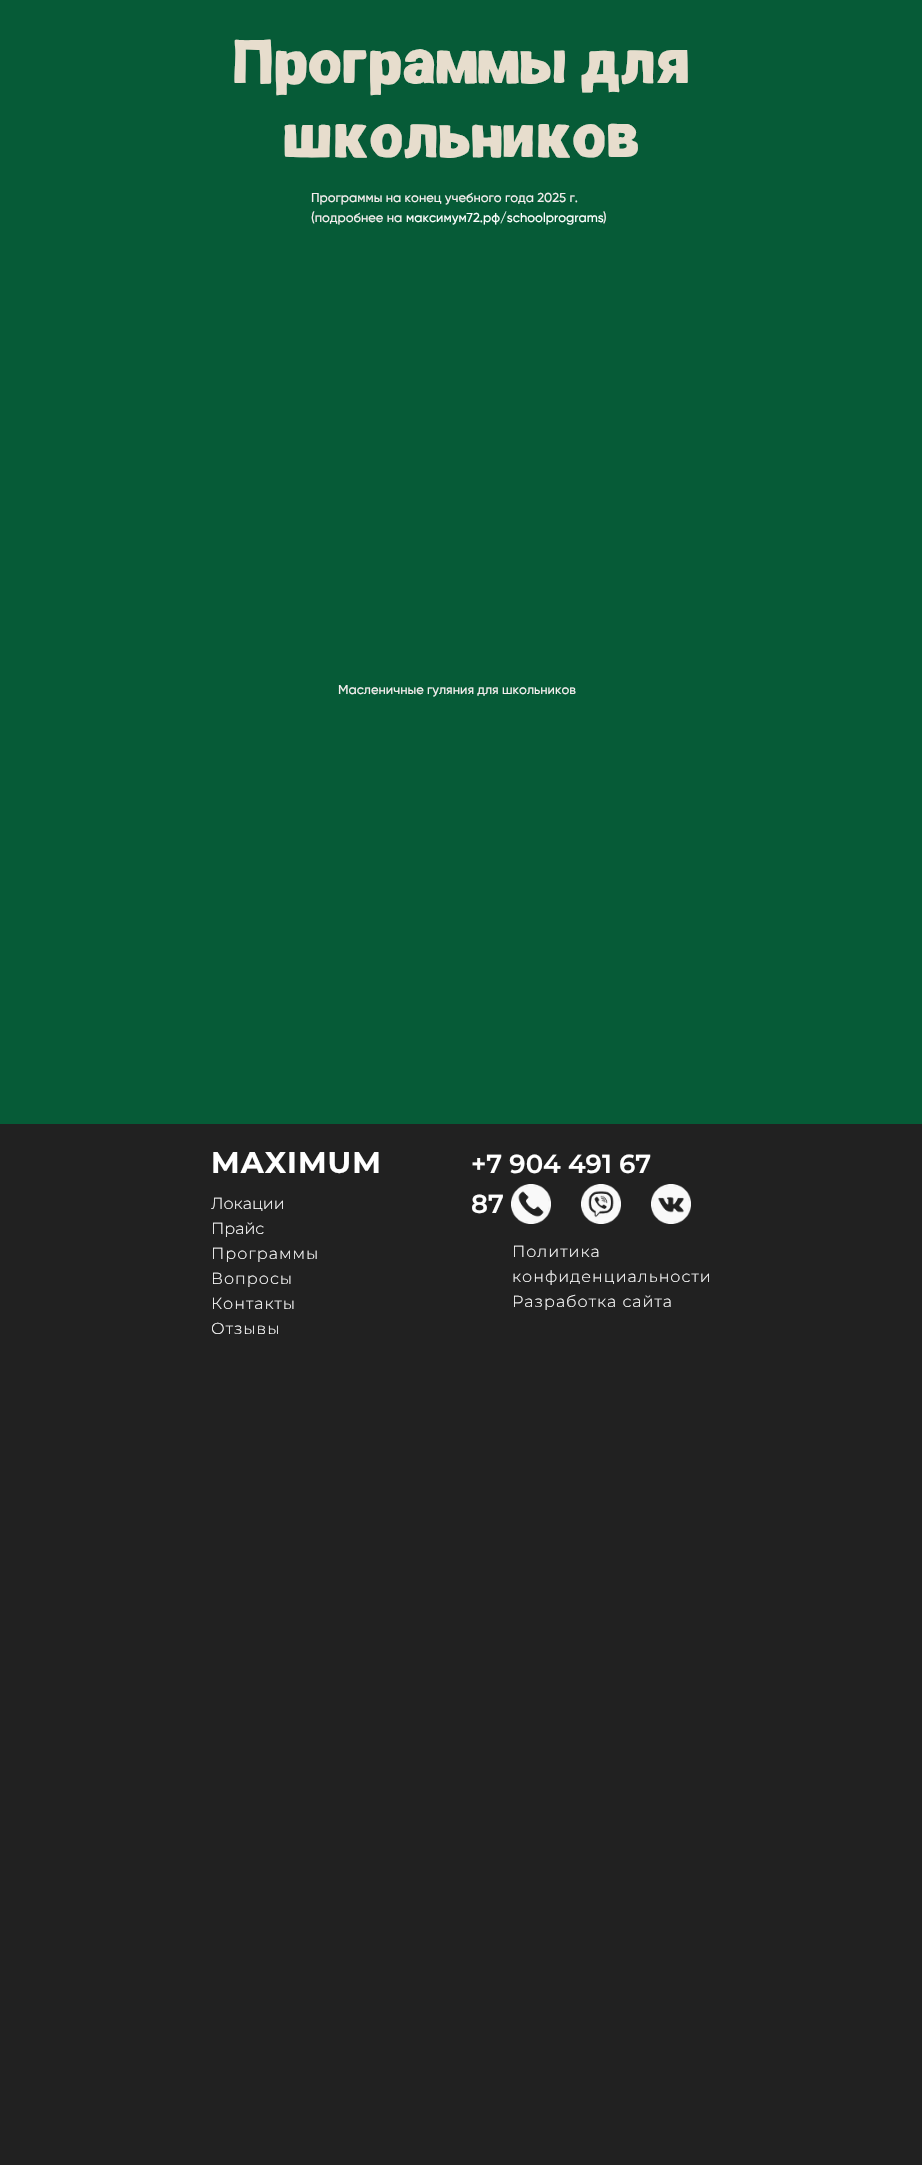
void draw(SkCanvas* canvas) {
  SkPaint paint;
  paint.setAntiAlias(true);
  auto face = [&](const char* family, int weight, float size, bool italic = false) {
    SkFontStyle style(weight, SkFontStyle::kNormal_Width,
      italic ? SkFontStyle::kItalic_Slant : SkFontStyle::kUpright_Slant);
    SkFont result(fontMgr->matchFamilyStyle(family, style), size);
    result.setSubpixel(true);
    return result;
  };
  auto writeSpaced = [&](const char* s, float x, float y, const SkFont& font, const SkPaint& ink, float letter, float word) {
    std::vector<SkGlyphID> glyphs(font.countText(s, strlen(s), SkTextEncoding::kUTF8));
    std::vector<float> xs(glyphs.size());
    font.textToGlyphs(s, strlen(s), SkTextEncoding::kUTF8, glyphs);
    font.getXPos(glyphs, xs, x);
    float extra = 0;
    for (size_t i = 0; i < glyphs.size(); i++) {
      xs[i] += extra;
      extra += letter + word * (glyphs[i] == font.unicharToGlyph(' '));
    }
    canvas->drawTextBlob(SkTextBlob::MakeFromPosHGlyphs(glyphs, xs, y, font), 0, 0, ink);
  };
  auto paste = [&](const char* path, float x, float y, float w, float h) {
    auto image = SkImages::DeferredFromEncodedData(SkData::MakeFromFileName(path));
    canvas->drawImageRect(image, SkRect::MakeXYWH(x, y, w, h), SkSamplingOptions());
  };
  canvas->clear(0xff212121);
  paint.setColor(0xff065b37);
  canvas->drawRect(SkRect::MakeXYWH(0, 0, 922, 1124), paint);
  paste("img/1.png", 511, 1184, 40, 40);
  paste("img/2.png", 581, 1184, 40, 40);
  paste("img/3.png", 651, 1184, 40, 40);
  auto f0 = face("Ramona", 700, 60);
  paint.setColor(0xffe7ddcd);
  canvas->drawString("Программы для", 232, 83, f0, paint);
  canvas->drawString("школьников", 283, 157, f0, paint);
  auto f1 = face("Gilroy", 500, 13);
  paint.setColor(0xfff5eeee);
  canvas->drawString("Программы на конец учебного года 2025 г.", 311, 202, f1, paint);
  canvas->drawString("(подробнее на", 311, 222, f1, paint);
  paint.setColor(0xffffffff);
  canvas->drawString("максимум72.рф/schoolprograms", 406, 222, f1, paint);
  paint.setColor(0xfff5eeee);
  canvas->drawString(")", 603, 222, f1, paint);
  canvas->drawString("Масленичные гуляния для школьников", 338, 694, f1, paint);
  auto f2 = face("Montserrat", 700, 30);
  paint.setColor(0xffffffff);
  writeSpaced("MAXIMUM", 211, 1173, f2, paint, 1, 0);
  auto f3 = face("Montserrat", 600, 26);
  canvas->drawString("+7 904 491 67", 471, 1173, f3, paint);
  canvas->drawString("87", 471, 1213, f3, paint);
  auto f4 = face("Montserrat", 300, 16);
  canvas->drawString("Локации", 211, 1209, f4, paint);
  canvas->drawString("Прайс", 211, 1234, f4, paint);
  {
    const struct { const char* s; float x, y; } items[] = {
      {"Программы", 211, 1259},
      {"Политика", 512, 1257},
      {"конфиденциальности", 512, 1282},
      {"Вопросы", 211, 1284},
      {"Контакты", 211, 1309},
      {"Разработка сайта", 512, 1307},
      {"Отзывы", 211, 1334},
    };
    for (auto [s, x, y] : items) {
      writeSpaced(s, x, y, f4, paint, 1, 0);
    }
  }
}
